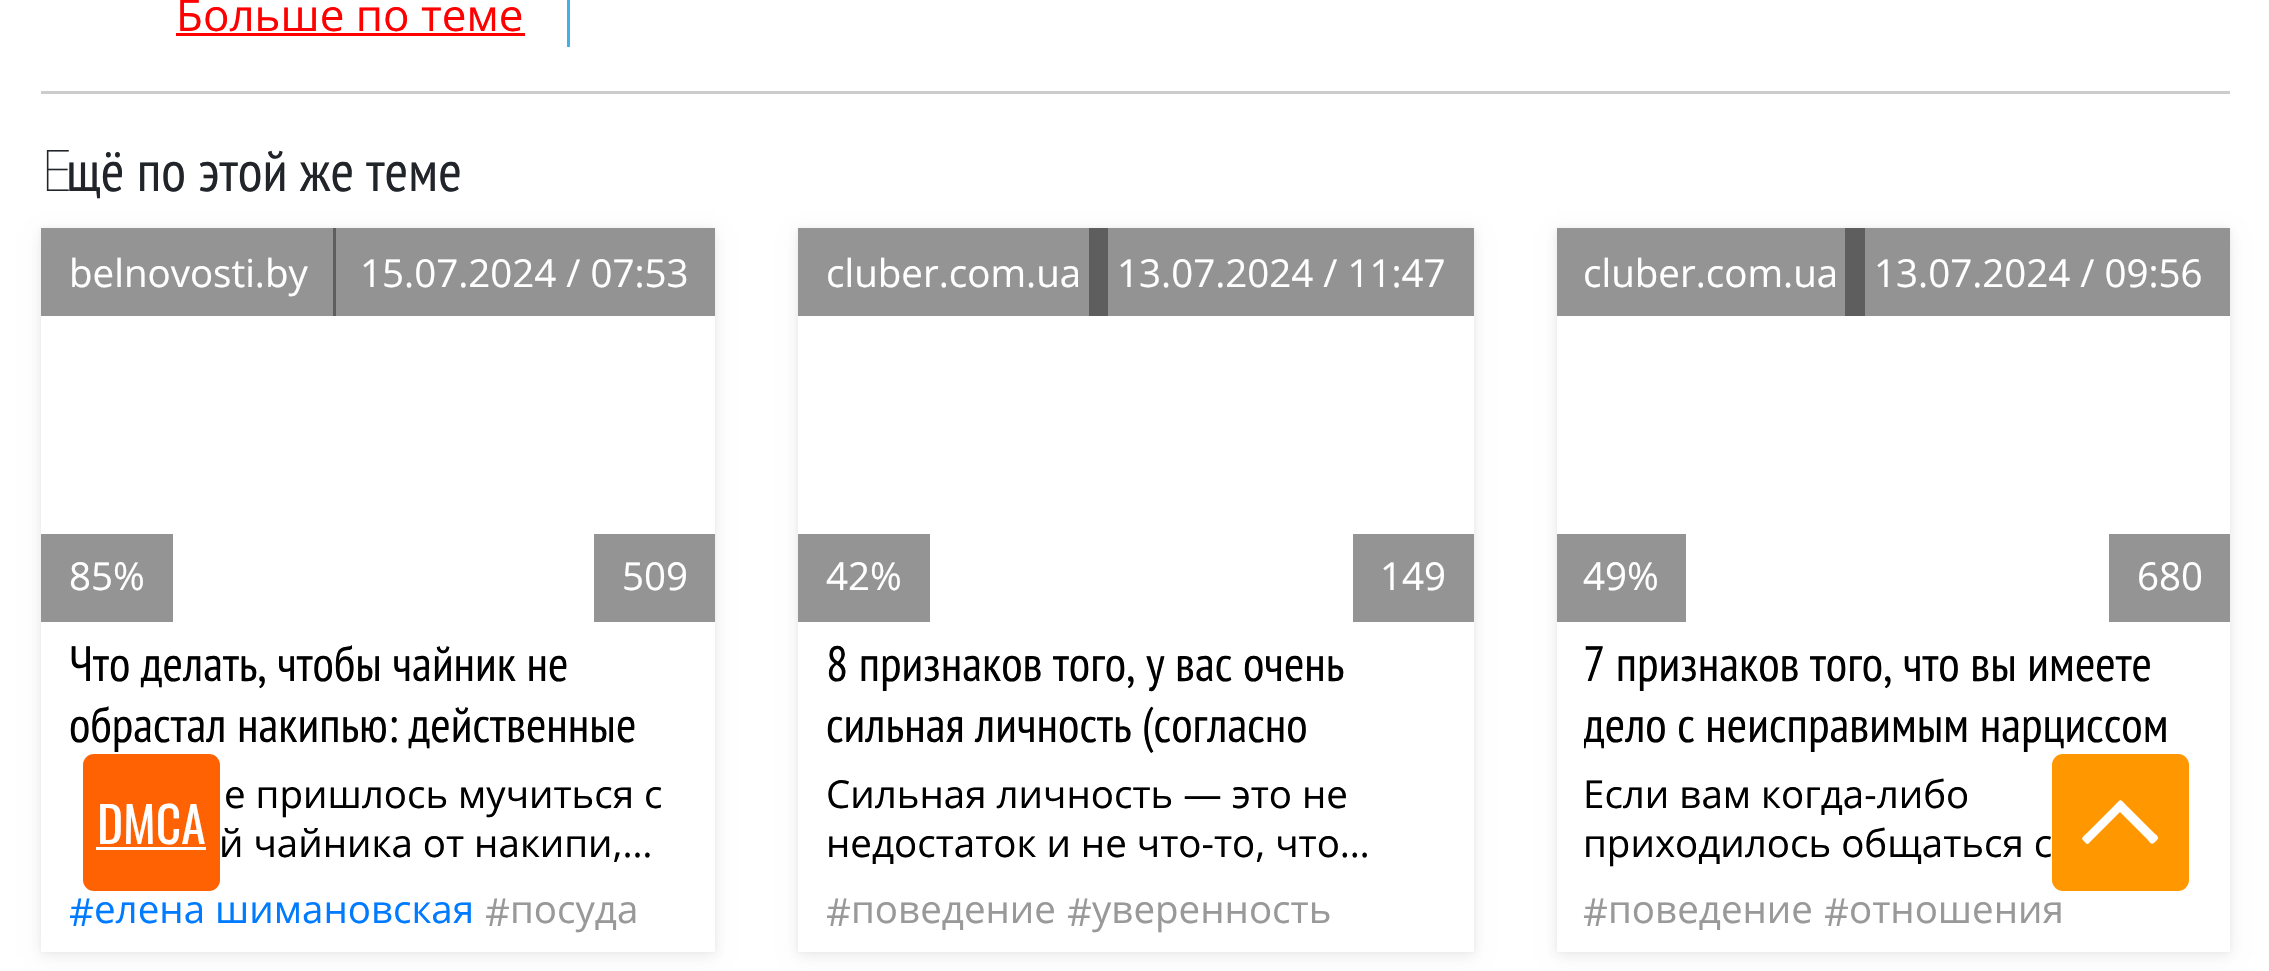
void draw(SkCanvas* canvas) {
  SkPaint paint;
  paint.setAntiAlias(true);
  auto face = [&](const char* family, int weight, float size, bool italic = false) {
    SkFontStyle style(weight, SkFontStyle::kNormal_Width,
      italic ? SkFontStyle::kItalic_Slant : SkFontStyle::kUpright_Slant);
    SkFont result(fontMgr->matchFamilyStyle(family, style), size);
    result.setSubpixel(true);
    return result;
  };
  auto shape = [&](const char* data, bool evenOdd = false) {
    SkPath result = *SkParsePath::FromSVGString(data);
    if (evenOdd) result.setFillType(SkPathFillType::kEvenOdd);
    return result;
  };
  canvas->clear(0xffffffff);
  {
    const struct { float x, y, w, h; SkColor color; } items[] = {
      {567, 0, 3, 47, 0xff41b2e8},
      {176, 33, 349, 3, 0xffff0000},
      {41, 91, 2189, 3, 0xffcccccc},
    };
    for (auto [x, y, w, h, color] : items) {
      paint.setColor(color);
      canvas->drawRect(SkRect::MakeXYWH(x, y, w, h), paint);
    }
  }
  paint.setColor(0x0f000000);
  paint.setMaskFilter(SkMaskFilter::MakeBlur(kNormal_SkBlurStyle, 8));
  canvas->drawRect(SkRect::MakeXYWH(41, 234, 674, 723), paint);
  paint.setMaskFilter(nullptr);
  paint.setMaskFilter(SkMaskFilter::MakeBlur(kNormal_SkBlurStyle, 3));
  canvas->drawRect(SkRect::MakeXYWH(41, 228, 674, 724), paint);
  paint.setMaskFilter(nullptr);
  {
    const struct { float x, y, w, h; SkColor color; } items[] = {
      {41, 228, 674, 724, 0xffffffff},
      {41, 228, 295, 88, 0xff949494},
      {333, 228, 382, 88, 0x80282828},
      {41, 534, 132, 88, 0xff949494},
      {594, 534, 121, 88, 0xff949494},
    };
    for (auto [x, y, w, h, color] : items) {
      paint.setColor(color);
      canvas->drawRect(SkRect::MakeXYWH(x, y, w, h), paint);
    }
  }
  paint.setColor(0x0f000000);
  paint.setMaskFilter(SkMaskFilter::MakeBlur(kNormal_SkBlurStyle, 8));
  canvas->drawRect(SkRect::MakeXYWH(798, 234, 676, 723), paint);
  paint.setMaskFilter(nullptr);
  paint.setMaskFilter(SkMaskFilter::MakeBlur(kNormal_SkBlurStyle, 3));
  canvas->drawRect(SkRect::MakeXYWH(798, 228, 676, 724), paint);
  paint.setMaskFilter(nullptr);
  {
    const struct { float x, y, w, h; SkColor color; } items[] = {
      {798, 228, 676, 724, 0xffffffff},
      {798, 228, 310, 88, 0xff949494},
      {1089, 228, 385, 88, 0x80282828},
      {798, 534, 132, 88, 0xff949494},
      {1353, 534, 121, 88, 0xff949494},
    };
    for (auto [x, y, w, h, color] : items) {
      paint.setColor(color);
      canvas->drawRect(SkRect::MakeXYWH(x, y, w, h), paint);
    }
  }
  paint.setColor(0x0f000000);
  paint.setMaskFilter(SkMaskFilter::MakeBlur(kNormal_SkBlurStyle, 8));
  canvas->drawRect(SkRect::MakeXYWH(1557, 234, 673, 723), paint);
  paint.setMaskFilter(nullptr);
  paint.setMaskFilter(SkMaskFilter::MakeBlur(kNormal_SkBlurStyle, 3));
  canvas->drawRect(SkRect::MakeXYWH(1557, 228, 673, 724), paint);
  paint.setMaskFilter(nullptr);
  {
    const struct { float x, y, w, h; SkColor color; } items[] = {
      {1557, 228, 673, 724, 0xffffffff},
      {1557, 228, 308, 88, 0xff949494},
      {1845, 228, 385, 88, 0x80282828},
      {1557, 534, 129, 88, 0xff949494},
      {2109, 534, 121, 88, 0xff949494},
    };
    for (auto [x, y, w, h, color] : items) {
      paint.setColor(color);
      canvas->drawRect(SkRect::MakeXYWH(x, y, w, h), paint);
    }
  }
  paint.setColor(0xffff6202);
  canvas->drawRoundRect(SkRect::MakeXYWH(83, 754, 137, 137), 11, 11, paint);
  paint.setColor(0xffffffff);
  canvas->drawRect(SkRect::MakeXYWH(96, 847, 110, 3), paint);
  paint.setColor(0xffff9800);
  canvas->drawRoundRect(SkRect::MakeXYWH(2052, 754, 137, 137), 11, 11, paint);
  paint.setColor(0xffffffff);
  canvas->drawPath(shape("M2083 840C2084 841 2087 846 2089 843L2120 812L2146 838C2150 842 2151 846 2155 842C2161 837 2158 837 2152 831L2128 807C2119 798 2122 798 2113 807L2089 831C2086 834 2080 838 2083 840Z"), paint);
  auto f0 = face("Open Sans", 400, 44);
  paint.setColor(0xffff0000);
  canvas->drawString("Больше по теме", 176, 31, f0, paint);
  auto f1 = face("Noto Sans", 100, 57.25f);
  paint.setColor(0xff212529);
  canvas->drawString("Е", 41, 191, f1, paint);
  auto f2 = face("PT Sans Narrow", 400, 57.25f);
  canvas->drawString("щё по этой же теме", 66, 191, f2, paint);
  auto f3 = face("Open Sans", 400, 38.5f);
  paint.setColor(0xffffffff);
  {
    const struct { const char* s; float x, y; } items[] = {
      {"belnovosti.by", 69, 287},
      {"15.07.2024 / 07:53", 360, 287},
      {"85%", 69, 590},
      {"509", 622, 590},
    };
    for (auto [s, x, y] : items) {
      canvas->drawString(s, x, y, f3, paint);
    }
  }
  auto f4 = face("PT Sans Narrow", 400, 49.5f);
  paint.setColor(0xff000000);
  canvas->drawString("Что делать, чтобы чайник не", 69, 681, f4, paint);
  canvas->drawString("обрастал накипью: действенные", 69, 742, f4, paint);
  canvas->drawString("е пришлось мучиться с", 224, 808, f3, paint);
  canvas->drawString("й чайника от накипи,…", 219, 857, f3, paint);
  paint.setColor(0xff007bff);
  canvas->drawString("#", 69, 926, f3, paint);
  canvas->drawString("елена шимановская", 94, 923, f3, paint);
  paint.setColor(0xff999999);
  canvas->drawString("#", 485, 926, f3, paint);
  canvas->drawString("посуда", 510, 923, f3, paint);
  paint.setColor(0xffffffff);
  {
    const struct { const char* s; float x, y; } items[] = {
      {"cluber.com.ua", 826, 287},
      {"13.07.2024 / 11:47", 1117, 287},
      {"42%", 826, 590},
      {"149", 1380, 590},
    };
    for (auto [s, x, y] : items) {
      canvas->drawString(s, x, y, f3, paint);
    }
  }
  paint.setColor(0xff000000);
  canvas->drawString("8 признаков того, у вас очень", 826, 681, f4, paint);
  canvas->drawString("сильная личность (согласно", 826, 742, f4, paint);
  canvas->drawString("Сильная личность — это не", 826, 808, f3, paint);
  canvas->drawString("недостаток и не что-то, что…", 826, 857, f3, paint);
  paint.setColor(0xff999999);
  {
    const struct { const char* s; float x, y; } items[] = {
      {"#", 826, 926},
      {"поведение", 851, 923},
      {"#", 1067, 926},
      {"уверенность", 1092, 923},
    };
    for (auto [s, x, y] : items) {
      canvas->drawString(s, x, y, f3, paint);
    }
  }
  paint.setColor(0xffffffff);
  {
    const struct { const char* s; float x, y; } items[] = {
      {"cluber.com.ua", 1583, 287},
      {"13.07.2024 / 09:56", 1874, 287},
      {"49%", 1583, 590},
      {"680", 2137, 590},
    };
    for (auto [s, x, y] : items) {
      canvas->drawString(s, x, y, f3, paint);
    }
  }
  paint.setColor(0xff000000);
  canvas->drawString("7 признаков того, что вы имеете", 1583, 681, f4, paint);
  canvas->save();
  canvas->clipRect(SkRect::MakeXYWH(1584, 635, 619, 121));
  canvas->drawString("дело с неисправимым нарциссом", 1583, 742, f4, paint);
  canvas->restore();
  canvas->drawString("Если вам когда-либо", 1583, 808, f3, paint);
  canvas->drawString("приходилось общаться с", 1583, 857, f3, paint);
  paint.setColor(0xff999999);
  {
    const struct { const char* s; float x, y; } items[] = {
      {"#", 1583, 926},
      {"поведение", 1608, 923},
      {"#", 1824, 926},
      {"отношения", 1849, 923},
    };
    for (auto [s, x, y] : items) {
      canvas->drawString(s, x, y, f3, paint);
    }
  }
  auto f5 = face("Oswald", 400, 49.5f);
  paint.setColor(0xffffffff);
  canvas->drawString("DMCA", 97, 844, f5, paint);
}
